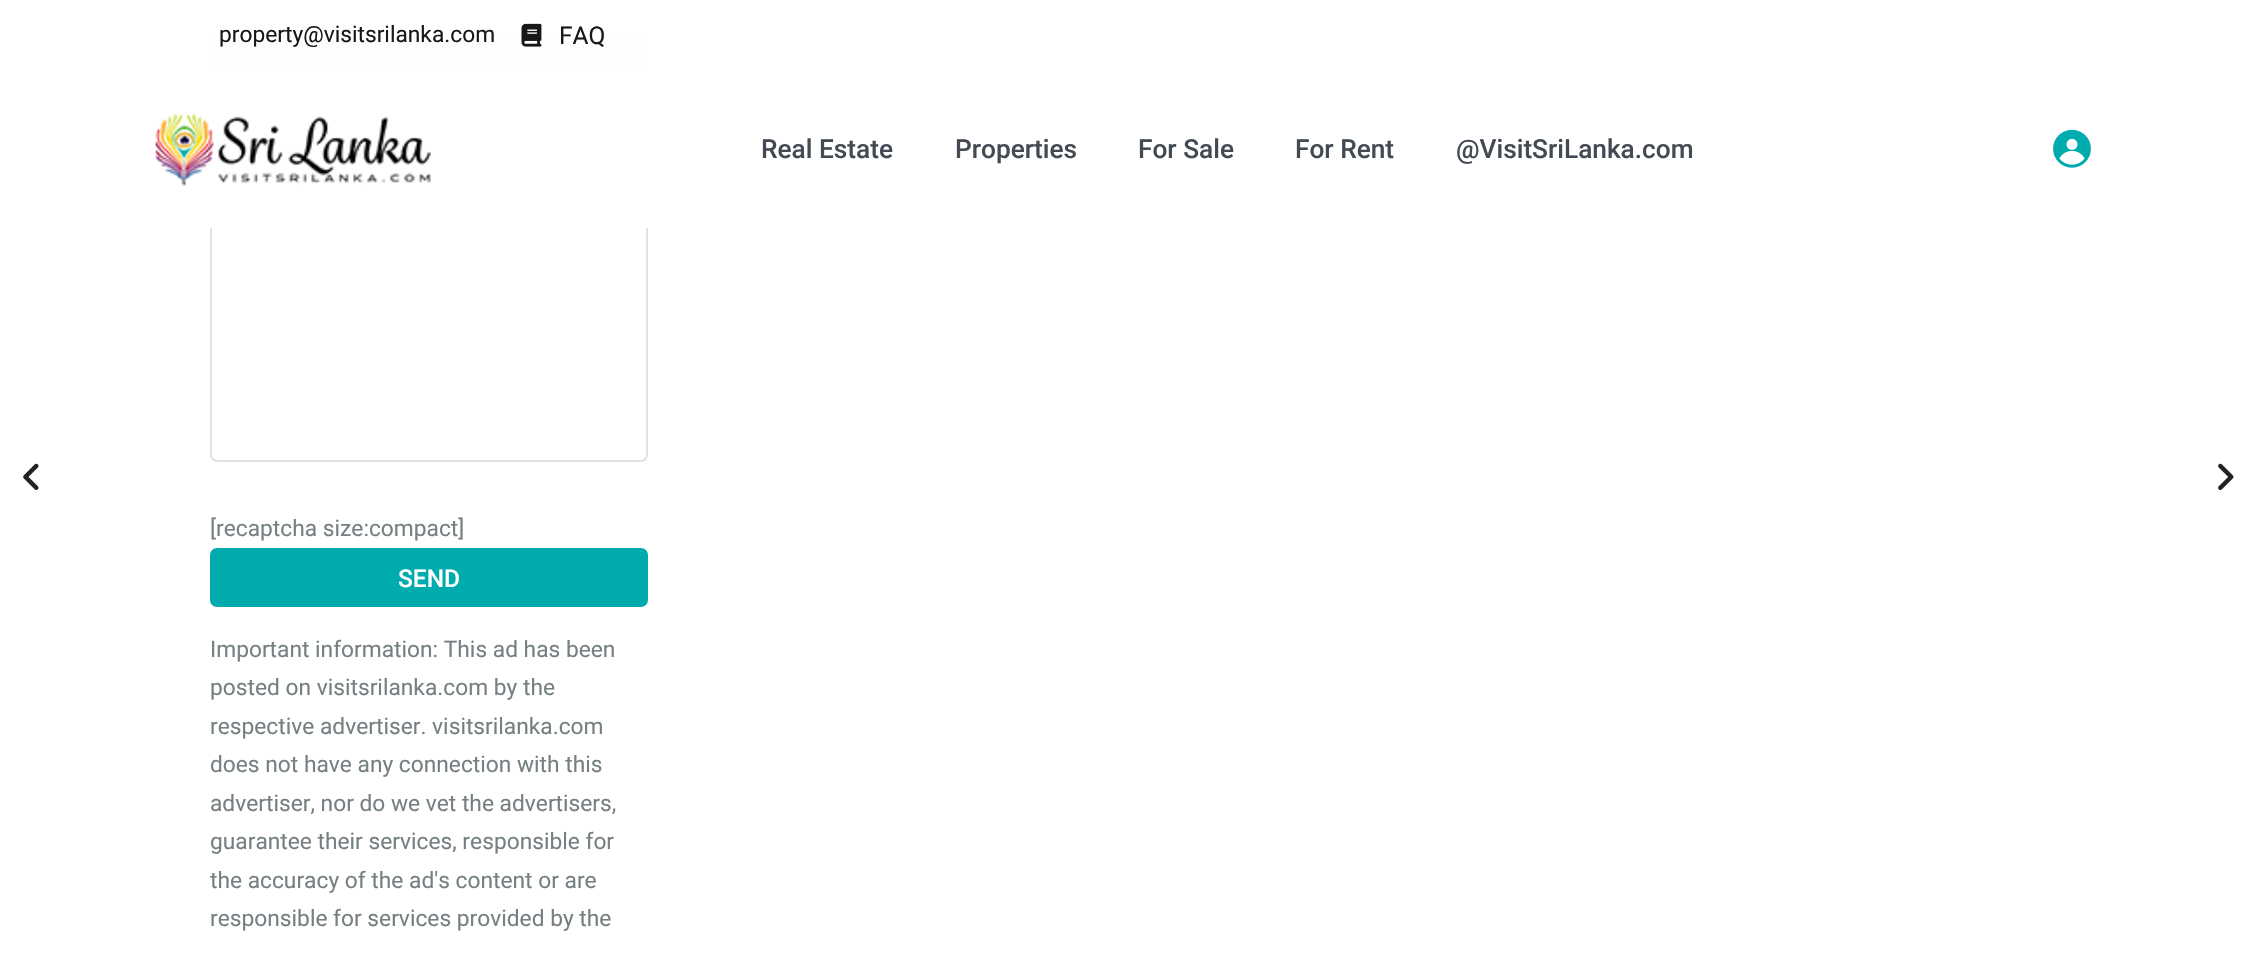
void draw(SkCanvas* canvas) {
  SkPaint paint;
  paint.setAntiAlias(true);
  auto face = [&](const char* family, int weight, float size, bool italic = false) {
    SkFontStyle style(weight, SkFontStyle::kNormal_Width,
      italic ? SkFontStyle::kItalic_Slant : SkFontStyle::kUpright_Slant);
    SkFont result(fontMgr->matchFamilyStyle(family, style), size);
    result.setSubpixel(true);
    return result;
  };
  auto paste = [&](const char* path, float x, float y, float w, float h) {
    auto image = SkImages::DeferredFromEncodedData(SkData::MakeFromFileName(path));
    canvas->drawImageRect(image, SkRect::MakeXYWH(x, y, w, h), SkSamplingOptions());
  };
  canvas->clear(0xffffffff);
  paint.setStroke(true);
  paint.setStrokeWidth(2);
  paint.setColor(0xffdde4e9);
  canvas->drawRoundRect(SkRect::MakeXYWH(211, 40, 436, 421), 6, 6, paint);
  paint.setStroke(false);
  paint.setColor(0xffffffff);
  canvas->drawRect(SkRect::MakeXYWH(210, 70, 438, 158), paint);
  paint.setColor(0xfffdfdfd);
  canvas->drawRect(SkRect::MakeXYWH(210, 39, 438, 31), paint);
  paste("img/1.png", 521, 23, 21, 24);
  paste("img/2.png", 155, 113, 276, 73);
  paste("img/3.png", 2053, 129, 38, 39);
  paint.setColor(0xff00abae);
  canvas->drawRoundRect(SkRect::MakeXYWH(210, 548, 438, 59), 7, 7, paint);
  paste("img/4.png", 23, 463, 16, 27);
  paste("img/5.png", 2218, 463, 16, 27);
  auto f0 = face("Roboto", 400, 22.75f);
  paint.setColor(0xff1a171b);
  canvas->drawString("property@visitsrilanka.com", 219, 42, f0, paint);
  auto f1 = face("Roboto", 400, 24.5f);
  canvas->drawString("FAQ", 559, 44, f1, paint);
  auto f2 = face("Roboto", 500, 26.25f);
  paint.setColor(0xff434a54);
  {
    const struct { const char* s; float x, y; } items[] = {
      {"Real Estate", 761, 158},
      {"Properties", 955, 158},
      {"For Sale", 1138, 158},
      {"For Rent", 1295, 158},
      {"@VisitSriLanka.com", 1456, 158},
    };
    for (auto [s, x, y] : items) {
      canvas->drawString(s, x, y, f2, paint);
    }
  }
  paint.setColor(0xff768082);
  canvas->drawString("[recaptcha size:compact]", 210, 536, f0, paint);
  auto f3 = face("Roboto", 500, 24.5f);
  paint.setColor(0xffffffff);
  canvas->drawString("SEND", 398, 587, f3, paint);
  paint.setColor(0xff768082);
  {
    const struct { const char* s; float x, y; } items[] = {
      {"Important information: This ad has been", 210, 657},
      {"posted on visitsrilanka.com by the", 210, 695},
      {"respective advertiser. visitsrilanka.com", 210, 734},
      {"does not have any connection with this", 210, 772},
      {"advertiser, nor do we vet the advertisers,", 210, 811},
      {"guarantee their services, responsible for", 210, 849},
      {"the accuracy of the ad's content or are", 210, 888},
      {"responsible for services provided by the", 210, 926},
    };
    for (auto [s, x, y] : items) {
      canvas->drawString(s, x, y, f0, paint);
    }
  }
}
